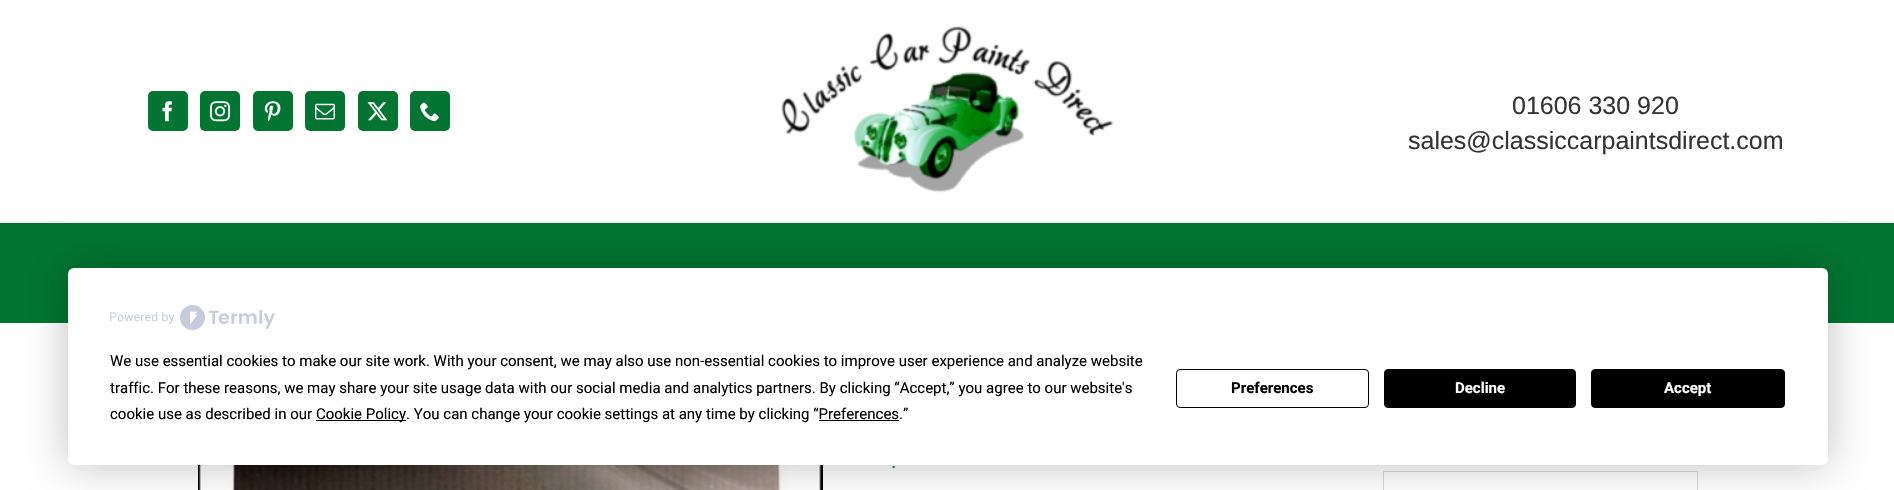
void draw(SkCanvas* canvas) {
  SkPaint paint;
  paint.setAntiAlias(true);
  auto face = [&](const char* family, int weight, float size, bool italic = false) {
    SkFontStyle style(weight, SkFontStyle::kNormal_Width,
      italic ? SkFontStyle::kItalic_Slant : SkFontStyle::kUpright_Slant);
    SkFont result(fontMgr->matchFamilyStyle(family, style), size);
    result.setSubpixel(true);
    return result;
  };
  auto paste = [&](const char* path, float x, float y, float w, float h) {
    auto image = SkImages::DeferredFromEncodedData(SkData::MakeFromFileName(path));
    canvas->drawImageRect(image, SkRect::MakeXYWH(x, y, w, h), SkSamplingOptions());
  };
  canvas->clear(0xffffffff);
  paint.setColor(0xfff2f2f2);
  canvas->drawRect(SkRect::MakeXYWH(0, 221, 1894, 1), paint);
  paint.setColor(0xff027532);
  canvas->drawRoundRect(SkRect::MakeXYWH(148, 91, 40, 40), 5, 5, paint);
  paste("img/1.png", 162, 101, 10, 21);
  canvas->drawRoundRect(SkRect::MakeXYWH(200, 91, 40, 40), 5, 5, paint);
  paste("img/2.png", 210, 101, 20, 21);
  canvas->drawRoundRect(SkRect::MakeXYWH(253, 91, 40, 40), 5, 5, paint);
  paste("img/3.png", 264, 101, 17, 21);
  canvas->drawRoundRect(SkRect::MakeXYWH(305, 91, 40, 40), 5, 5, paint);
  paste("img/4.png", 315, 103, 20, 17);
  canvas->drawRoundRect(SkRect::MakeXYWH(358, 91, 40, 40), 5, 5, paint);
  paste("img/5.png", 367, 102, 21, 19);
  canvas->drawRoundRect(SkRect::MakeXYWH(410, 91, 40, 40), 5, 5, paint);
  paste("img/6.png", 420, 102, 19, 20);
  paste("img/7.png", 781, 26, 333, 167);
  canvas->drawRect(SkRect::MakeXYWH(0, 223, 1894, 100), paint);
  paste("img/8.png", 198, 465, 625, 25);
  paint.setStroke(true);
  paint.setStrokeWidth(1);
  paint.setColor(0xffd8d8d8);
  canvas->drawRect(SkRect::MakeXYWH(1383.5f, 471.5f, 314, 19), paint);
  paint.setStroke(false);
  paint.setColor(0x40000000);
  paint.setMaskFilter(SkMaskFilter::MakeBlur(kNormal_SkBlurStyle, 22));
  canvas->drawRoundRect(SkRect::MakeXYWH(68, 268, 1760, 197), 6, 6, paint);
  paint.setMaskFilter(nullptr);
  paint.setColor(0xffffffff);
  canvas->drawRoundRect(SkRect::MakeXYWH(68, 268, 1760, 197), 6, 6, paint);
  paste("img/9.png", 110, 305, 165, 25);
  paint.setColor(0xff000000);
  canvas->drawRect(SkRect::MakeXYWH(316, 420, 90, 1), paint);
  canvas->drawRect(SkRect::MakeXYWH(819, 420, 80, 1), paint);
  paint.setStroke(true);
  canvas->drawRoundRect(SkRect::MakeXYWH(1176.5f, 369.5f, 192, 38), 3.5f, 3.5f, paint);
  paint.setStroke(false);
  canvas->drawRoundRect(SkRect::MakeXYWH(1384.5f, 369.5f, 191, 38), 3.5f, 3.5f, paint);
  paint.setStroke(true);
  canvas->drawRoundRect(SkRect::MakeXYWH(1384.5f, 369.5f, 191, 38), 3.5f, 3.5f, paint);
  paint.setStroke(false);
  canvas->drawRoundRect(SkRect::MakeXYWH(1591.5f, 369.5f, 193, 38), 3.5f, 3.5f, paint);
  paint.setStroke(true);
  canvas->drawRoundRect(SkRect::MakeXYWH(1591.5f, 369.5f, 193, 38), 3.5f, 3.5f, paint);
  auto f0 = face("Liberation Sans", 400, 25);
  paint.setStroke(false);
  paint.setColor(0xff333333);
  canvas->drawString("01606 330 920", 1512, 114, f0, paint);
  canvas->drawString("sales@classiccarpaintsdirect.com", 1408, 149, f0, paint);
  auto f1 = face("Liberation Sans", 400, 19);
  paint.setColor(0xff027532);
  canvas->drawString(".", 891, 468, f1, paint);
  auto f2 = face("Roboto", 400, 15);
  paint.setColor(0xff000000);
  {
    const struct { const char* s; float x, y; } items[] = {
      {"We use essential cookies to make our site work. With your consent, we may also use non-essential cookies to improve user experience and analyze website", 110, 366},
      {"traffic. For these reasons, we may share your site usage data with our social media and analytics partners. By clicking “Accept,” you agree to our website's", 110, 393},
      {"cookie use as described in our", 110, 419},
      {"Cookie Policy. You can change your cookie settings at any time by clicking “Preferences.”", 316, 419},
    };
    for (auto [s, x, y] : items) {
      canvas->drawString(s, x, y, f2, paint);
    }
  }
  auto f3 = face("Roboto", 700, 15);
  canvas->drawString("Preferences", 1231, 393, f3, paint);
  paint.setColor(0xffffffff);
  canvas->drawString("Decline", 1455, 393, f3, paint);
  canvas->drawString("Accept", 1664, 393, f3, paint);
}
